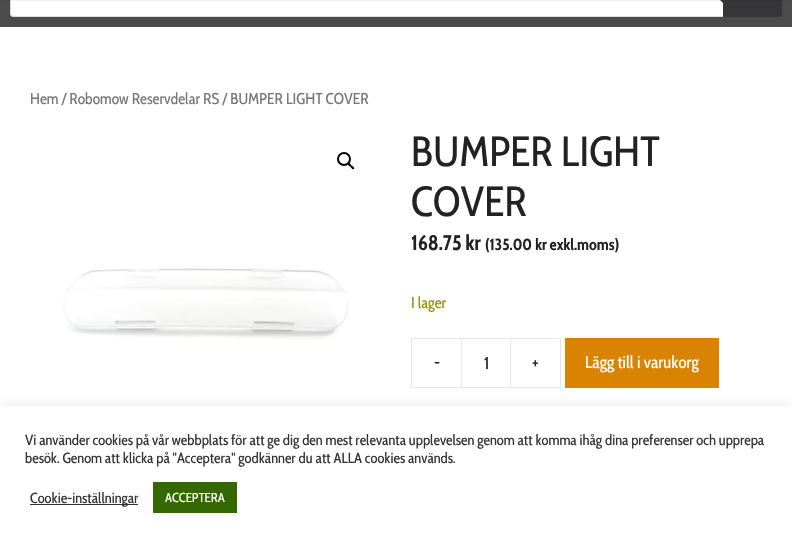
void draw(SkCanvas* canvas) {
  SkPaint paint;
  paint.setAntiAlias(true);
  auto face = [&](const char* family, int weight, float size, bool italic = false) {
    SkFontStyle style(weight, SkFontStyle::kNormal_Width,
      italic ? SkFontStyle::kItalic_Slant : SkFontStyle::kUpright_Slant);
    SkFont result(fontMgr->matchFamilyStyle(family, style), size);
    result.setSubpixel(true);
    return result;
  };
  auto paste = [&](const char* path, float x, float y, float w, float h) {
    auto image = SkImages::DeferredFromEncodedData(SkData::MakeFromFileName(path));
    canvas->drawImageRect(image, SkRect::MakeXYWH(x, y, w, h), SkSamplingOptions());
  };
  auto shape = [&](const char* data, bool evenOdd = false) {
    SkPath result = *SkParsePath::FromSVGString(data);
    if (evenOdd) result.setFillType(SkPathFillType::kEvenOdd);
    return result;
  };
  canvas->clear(0xffffffff);
  paint.setColor(0xff4b4b4b);
  canvas->drawRect(SkRect::MakeXYWH(0, 0, 792, 27), paint);
  paint.setColor(0xffffffff);
  canvas->drawRoundRect(SkRect::MakeXYWH(10.5f, -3.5f, 771, 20), 2.5f, 2.5f, paint);
  paint.setStroke(true);
  paint.setStrokeWidth(1);
  paint.setColor(0xffdddddd);
  canvas->drawRoundRect(SkRect::MakeXYWH(10.5f, -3.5f, 771, 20), 2.5f, 2.5f, paint);
  paint.setStroke(false);
  paint.setColor(0xff363639);
  canvas->drawPath(shape("M723-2H780C781-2 782-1 782 0V15C782 16 781 17 780 17H723Z"), paint);
  canvas->drawPath(shape("M725-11V5L717-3Z"), paint);
  paint.setColor(0x33000000);
  paint.setMaskFilter(SkMaskFilter::MakeBlur(kNormal_SkBlurStyle, 1));
  canvas->drawRect(SkRect::MakeXYWH(2, -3, 788, 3), paint);
  paint.setMaskFilter(nullptr);
  paint.setStroke(true);
  paint.setStrokeWidth(2);
  paint.setColor(0xff000000);
  canvas->drawCircle(344, 159, 6, paint);
  paint.setStroke(false);
  canvas->drawPath(shape("M348 163C349.5 162 351 165 351.5 165.5C352.5 166 355 167.5 354 169C352.5 170 351 167.5 350.5 167C349.5 166 347 164.5 348 163Z"), paint);
  paste("img/1.png", 63, 268, 286, 72);
  paint.setColor(0xffe6e6e6);
  canvas->drawPath(shape("M411 338H461V339H412ZM461 388H411L412 387H461Z"), paint);
  paint.setColor(0x1a000000);
  canvas->drawPath(shape("M411 388V338L412 339V387Z"), paint);
  paint.setStroke(true);
  paint.setStrokeWidth(1);
  paint.setColor(0xffe6e6e6);
  canvas->drawRect(SkRect::MakeXYWH(461.5f, 338.5f, 49, 49), paint);
  paint.setStroke(false);
  canvas->drawPath(shape("M511 338H561L560 339H511Z"), paint);
  paint.setColor(0x1a000000);
  canvas->drawPath(shape("M561 338V388L560 387V339Z"), paint);
  canvas->drawPath(shape("M561 388H511V387H560Z"), paint);
  paint.setColor(0xffda8300);
  canvas->drawRect(SkRect::MakeXYWH(565, 338, 154, 50), paint);
  paint.setColor(0x4dacabab);
  paint.setMaskFilter(SkMaskFilter::MakeBlur(kNormal_SkBlurStyle, 5));
  canvas->drawRect(SkRect::MakeXYWH(0, 405, 792, 137), paint);
  paint.setMaskFilter(nullptr);
  {
    const struct { float x, y, w, h; SkColor color; } items[] = {
      {0, 406, 792, 137, 0xffffffff},
      {30, 504, 108, 1, 0xff333333},
      {153, 482, 84, 31, 0xff346800},
    };
    for (auto [x, y, w, h, color] : items) {
      paint.setColor(color);
      canvas->drawRect(SkRect::MakeXYWH(x, y, w, h), paint);
    }
  }
  auto f0 = face("Cabin Condensed", 400, 15.6f);
  paint.setColor(0xff767676);
  canvas->drawString("Hem / Robomow Reservdelar RS / BUMPER LIGHT COVER", 30, 104, f0, paint);
  auto f1 = face("Cabin Condensed", 400, 42);
  paint.setColor(0xff222222);
  canvas->drawString("BUMPER LIGHT", 411, 166, f1, paint);
  canvas->drawString("COVER", 411, 216, f1, paint);
  auto f2 = face("Cabin Condensed", 700, 21);
  canvas->drawString("168.75 kr", 411, 250, f2, paint);
  auto f3 = face("Cabin Condensed", 700, 16);
  canvas->drawString("(135.00 kr exkl.moms)", 485, 250, f3, paint);
  paint.setColor(0xff958e09);
  canvas->drawString("I lager", 411, 308, f0, paint);
  auto f4 = face("Cabin Condensed", 400, 17);
  paint.setColor(0xff222222);
  {
    const struct { const char* s; float x, y; } items[] = {
      {"-", 434, 368},
      {"1", 484, 369},
      {"+", 532, 368},
    };
    for (auto [s, x, y] : items) {
      canvas->drawString(s, x, y, f4, paint);
    }
  }
  paint.setColor(0xffffffff);
  canvas->drawString("Lägg till i varukorg", 585, 368, f4, paint);
  auto f5 = face("Cabin Condensed", 400, 14.67f);
  paint.setColor(0xff333333);
  {
    const struct { const char* s; float x, y; } items[] = {
      {"Vi använder cookies på vår webbplats för att ge dig den mest relevanta upplevelsen genom att komma ihåg dina preferenser och upprepa", 25, 445},
      {"besök. Genom att klicka på \"Acceptera\" godkänner du att ALLA cookies används.", 25, 463},
      {"Cookie-inställningar", 30, 503},
    };
    for (auto [s, x, y] : items) {
      canvas->drawString(s, x, y, f5, paint);
    }
  }
  auto f6 = face("Cabin Condensed", 400, 13);
  paint.setColor(0xffffffff);
  canvas->drawString("ACCEPTERA", 165, 502, f6, paint);
}
